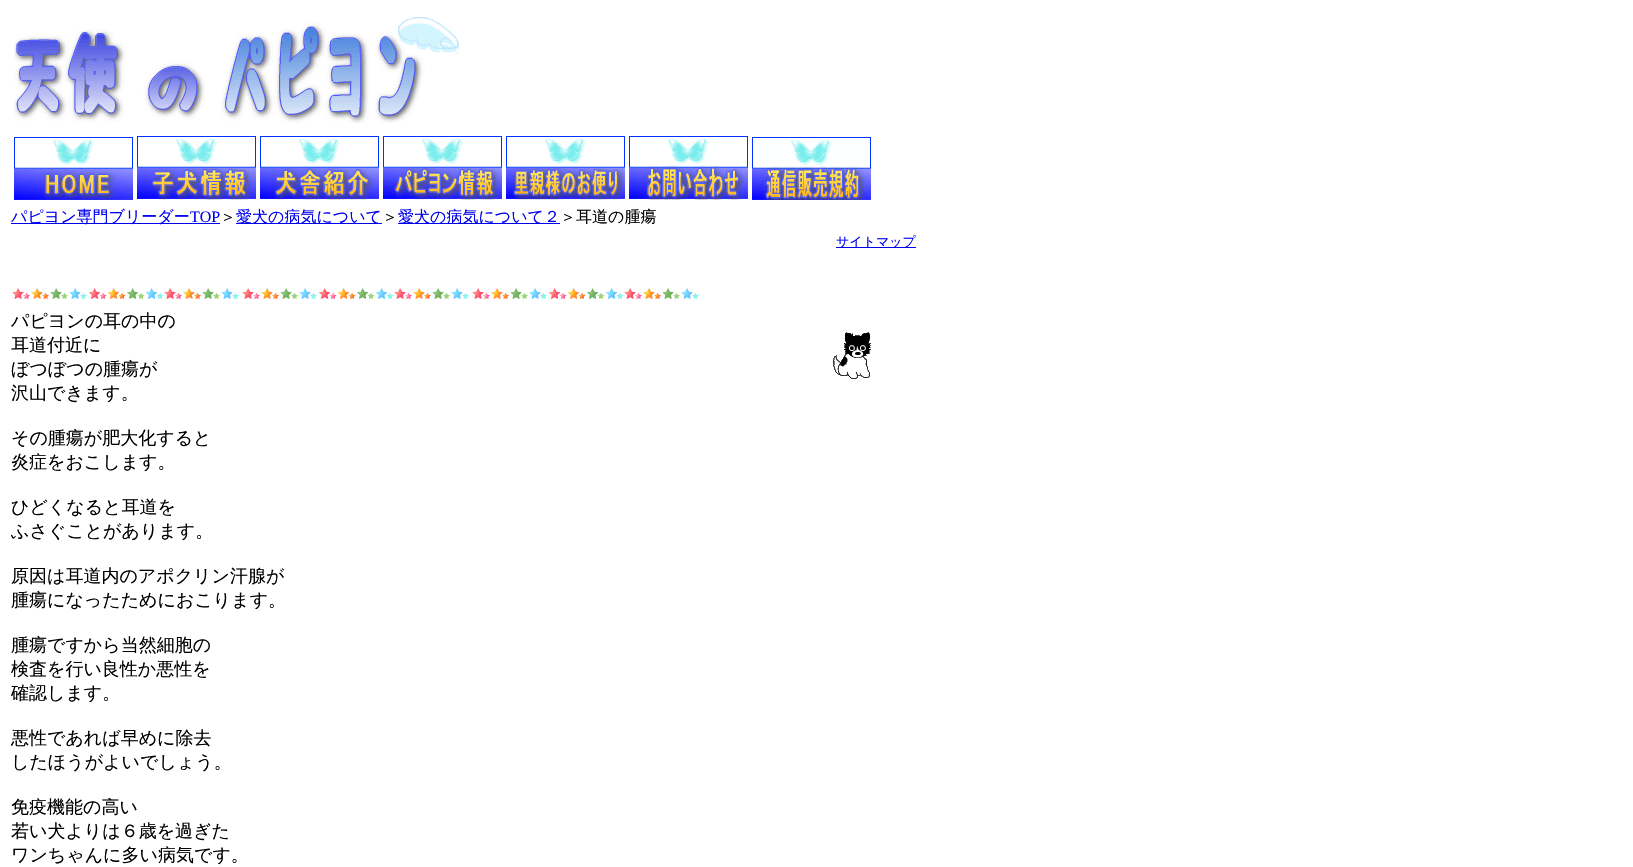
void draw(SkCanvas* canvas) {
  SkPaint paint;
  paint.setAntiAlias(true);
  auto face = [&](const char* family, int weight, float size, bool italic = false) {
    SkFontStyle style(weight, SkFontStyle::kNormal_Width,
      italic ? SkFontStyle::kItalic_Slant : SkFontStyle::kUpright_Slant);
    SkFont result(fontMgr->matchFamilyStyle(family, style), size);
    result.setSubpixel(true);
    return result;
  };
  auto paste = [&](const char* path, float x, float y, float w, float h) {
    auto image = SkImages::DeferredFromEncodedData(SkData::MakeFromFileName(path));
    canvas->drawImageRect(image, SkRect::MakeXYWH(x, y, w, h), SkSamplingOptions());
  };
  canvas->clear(0xffffffff);
  paste("img/1.png", 14, 17, 445, 106);
  paste("img/2.png", 14, 137, 119, 63);
  paste("img/3.png", 137, 136, 119, 64);
  paste("img/4.png", 260, 136, 119, 64);
  paste("img/5.png", 383, 136, 119, 64);
  paste("img/6.png", 506, 136, 119, 64);
  paste("img/7.png", 629, 136, 119, 64);
  paste("img/8.png", 752, 137, 119, 63);
  {
    const struct { float x, y, w, h; SkColor color; } items[] = {
      {11, 223, 209, 1, 0xff0000ee},
      {236, 223, 146, 1, 0xff0000ee},
      {398, 223, 162, 1, 0xff0000ee},
      {836, 247, 80, 1, 0xff0000ee},
    };
    for (auto [x, y, w, h, color] : items) {
      paint.setColor(color);
      canvas->drawRect(SkRect::MakeXYWH(x, y, w, h), paint);
    }
  }
  paste("img/9.png", 12, 288, 227, 11);
  paste("img/9.png", 242, 288, 227, 11);
  paste("img/9.png", 472, 288, 227, 11);
  paste("img/10.png", 833, 332, 38, 47);
  auto f0 = face("WenQuanYi Zen Hei", 500, 16);
  canvas->drawString("パピヨン専門ブリーダー", 11, 222, f0, paint);
  auto f1 = face("Liberation Serif", 400, 16);
  canvas->drawString("TOP", 190, 222, f1, paint);
  paint.setColor(0xff000000);
  canvas->drawString("＞", 220, 222, f0, paint);
  paint.setColor(0xff0000ee);
  canvas->drawString("愛犬の病気について", 236, 222, f0, paint);
  paint.setColor(0xff000000);
  canvas->drawString("＞", 382, 222, f0, paint);
  paint.setColor(0xff0000ee);
  canvas->drawString("愛犬の病気について２", 398, 222, f0, paint);
  paint.setColor(0xff000000);
  canvas->drawString("＞耳道の腫瘍", 560, 222, f0, paint);
  auto f2 = face("WenQuanYi Zen Hei", 500, 13);
  paint.setColor(0xff0000ee);
  canvas->drawString("サイトマップ", 836, 246, f2, paint);
  auto f3 = face("WenQuanYi Zen Hei", 500, 18);
  paint.setColor(0xff000000);
  {
    const struct { const char* s; float x, y; } items[] = {
      {"パピヨンの耳の中の", 11, 327},
      {"耳道付近に", 11, 351},
      {"ぼつぼつの腫瘍が", 11, 375},
      {"沢山できます。", 11, 399},
      {"その腫瘍が肥大化すると", 11, 444},
      {"炎症をおこします。", 11, 468},
      {"ひどくなると耳道を", 11, 513},
      {"ふさぐことがあります。", 11, 537},
      {"原因は耳道内のアポクリン汗腺が", 11, 582},
      {"腫瘍になったためにおこります。", 11, 606},
      {"腫瘍ですから当然細胞の", 11, 651},
      {"検査を行い良性か悪性を", 11, 675},
      {"確認します。", 11, 699},
      {"悪性であれば早めに除去", 11, 744},
      {"したほうがよいでしょう。", 11, 768},
      {"免疫機能の高い", 11, 813},
      {"若い犬よりは６歳を過ぎた", 11, 837},
      {"ワンちゃんに多い病気です。", 11, 861},
    };
    for (auto [s, x, y] : items) {
      canvas->drawString(s, x, y, f3, paint);
    }
  }
}
